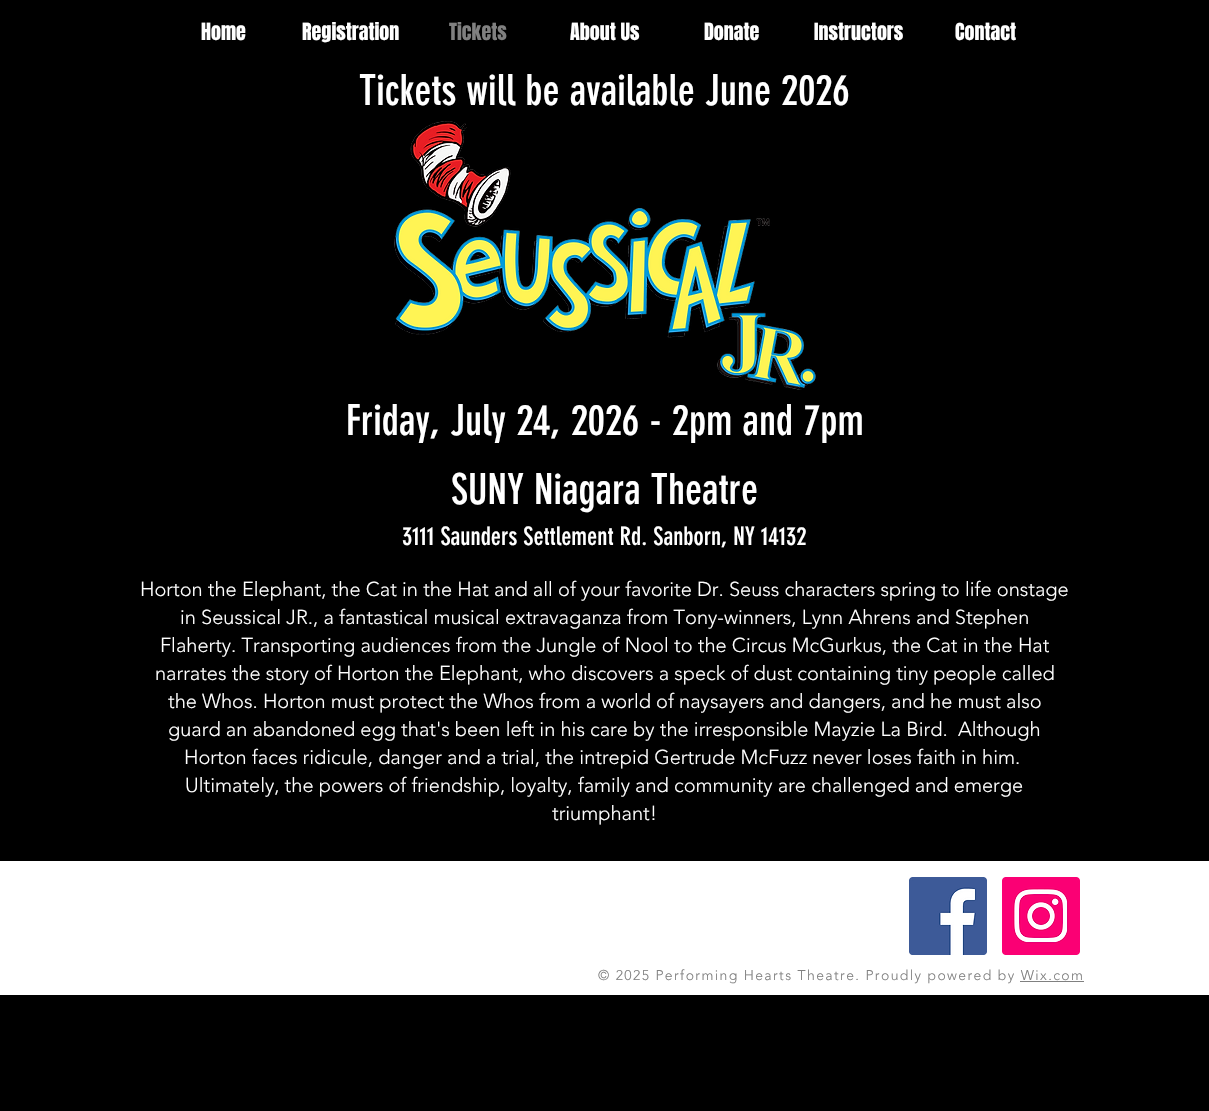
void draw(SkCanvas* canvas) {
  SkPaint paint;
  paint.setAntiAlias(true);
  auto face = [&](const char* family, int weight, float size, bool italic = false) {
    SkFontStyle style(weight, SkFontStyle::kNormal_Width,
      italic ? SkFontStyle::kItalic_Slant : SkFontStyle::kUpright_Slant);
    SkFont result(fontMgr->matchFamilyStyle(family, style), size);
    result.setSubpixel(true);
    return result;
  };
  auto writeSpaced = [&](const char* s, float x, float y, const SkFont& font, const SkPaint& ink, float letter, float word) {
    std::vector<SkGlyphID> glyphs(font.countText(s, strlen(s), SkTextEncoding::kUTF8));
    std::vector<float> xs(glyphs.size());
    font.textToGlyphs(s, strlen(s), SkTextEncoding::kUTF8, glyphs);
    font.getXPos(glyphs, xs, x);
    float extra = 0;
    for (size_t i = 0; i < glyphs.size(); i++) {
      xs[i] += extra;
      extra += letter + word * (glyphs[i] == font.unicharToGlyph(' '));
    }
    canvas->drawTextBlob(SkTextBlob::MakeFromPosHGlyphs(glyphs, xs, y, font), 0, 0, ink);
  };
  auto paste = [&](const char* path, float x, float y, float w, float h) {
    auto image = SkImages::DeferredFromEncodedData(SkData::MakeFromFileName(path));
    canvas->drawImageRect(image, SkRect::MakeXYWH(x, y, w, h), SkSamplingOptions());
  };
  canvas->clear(0xff000000);
  paste("img/1.png", 394, 121, 422, 269);
  paint.setColor(0xffffffff);
  canvas->drawRect(SkRect::MakeXYWH(0, 861, 1209, 134), paint);
  paste("img/2.png", 909, 877, 78, 78);
  paste("img/3.png", 1002, 877, 78, 78);
  paint.setColor(0xff808080);
  canvas->drawRect(SkRect::MakeXYWH(1020, 981, 64, 1), paint);
  auto f0 = face("Anton", 400, 20);
  paint.setColor(0xffffffff);
  canvas->drawString("Home", 201, 40, f0, paint);
  canvas->drawString("Registration", 302, 40, f0, paint);
  paint.setColor(0xff808080);
  canvas->drawString("Tickets", 449, 40, f0, paint);
  paint.setColor(0xffffffff);
  {
    const struct { const char* s; float x, y; } items[] = {
      {"About Us", 570, 40},
      {"Donate", 704, 40},
      {"Instructors", 814, 40},
      {"Contact", 955, 40},
    };
    for (auto [s, x, y] : items) {
      canvas->drawString(s, x, y, f0, paint);
    }
  }
  auto f1 = face("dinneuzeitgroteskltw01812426", 400, 42);
  {
    const struct { const char* s; float x, y; } items[] = {
      {"Tickets will be available June 2026", 359, 105},
      {"Friday, July 24, 2026 - 2pm and 7pm", 346, 435},
      {"SUNY Niagara Theatre", 451, 504},
    };
    for (auto [s, x, y] : items) {
      canvas->drawString(s, x, y, f1, paint);
    }
  }
  auto f2 = face("dinneuzeitgroteskltw01812426", 400, 25);
  canvas->drawString("3111 Saunders Settlement Rd. Sanborn, NY 14132", 402, 545, f2, paint);
  auto f3 = face("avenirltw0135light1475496", 300, 20);
  {
    const struct { const char* s; float x, y; } items[] = {
      {"Horton the Elephant, the Cat in the Hat and all of your favorite Dr. Seuss characters spring to life onstage", 140, 596},
      {"in Seussical JR., a fantastical musical extravaganza from Tony-winners, Lynn Ahrens and Stephen", 180, 624},
      {"Flaherty. Transporting audiences from the Jungle of Nool to the Circus McGurkus, the Cat in the Hat", 160, 652},
      {"narrates the story of Horton the Elephant, who discovers a speck of dust containing tiny people called", 155, 680},
      {"the Whos. Horton must protect the Whos from a world of naysayers and dangers, and he must also", 168, 708},
      {"guard an abandoned egg that's been left in his care by the irresponsible Mayzie La Bird.  Although", 168, 736},
      {"Horton faces ridicule, danger and a trial, the intrepid Gertrude McFuzz never loses faith in him.", 184, 764},
      {"Ultimately, the powers of friendship, loyalty, family and community are challenged and emerge", 185, 792},
      {"triumphant!", 552, 820},
    };
    for (auto [s, x, y] : items) {
      canvas->drawString(s, x, y, f3, paint);
    }
  }
  auto f4 = face("avenirltw0135light1475496", 300, 14);
  paint.setColor(0xff808080);
  writeSpaced("© 2025 Performing Hearts Theatre. Proudly powered by Wix.com", 598, 980, f4, paint, 1.4f, 0);
}
